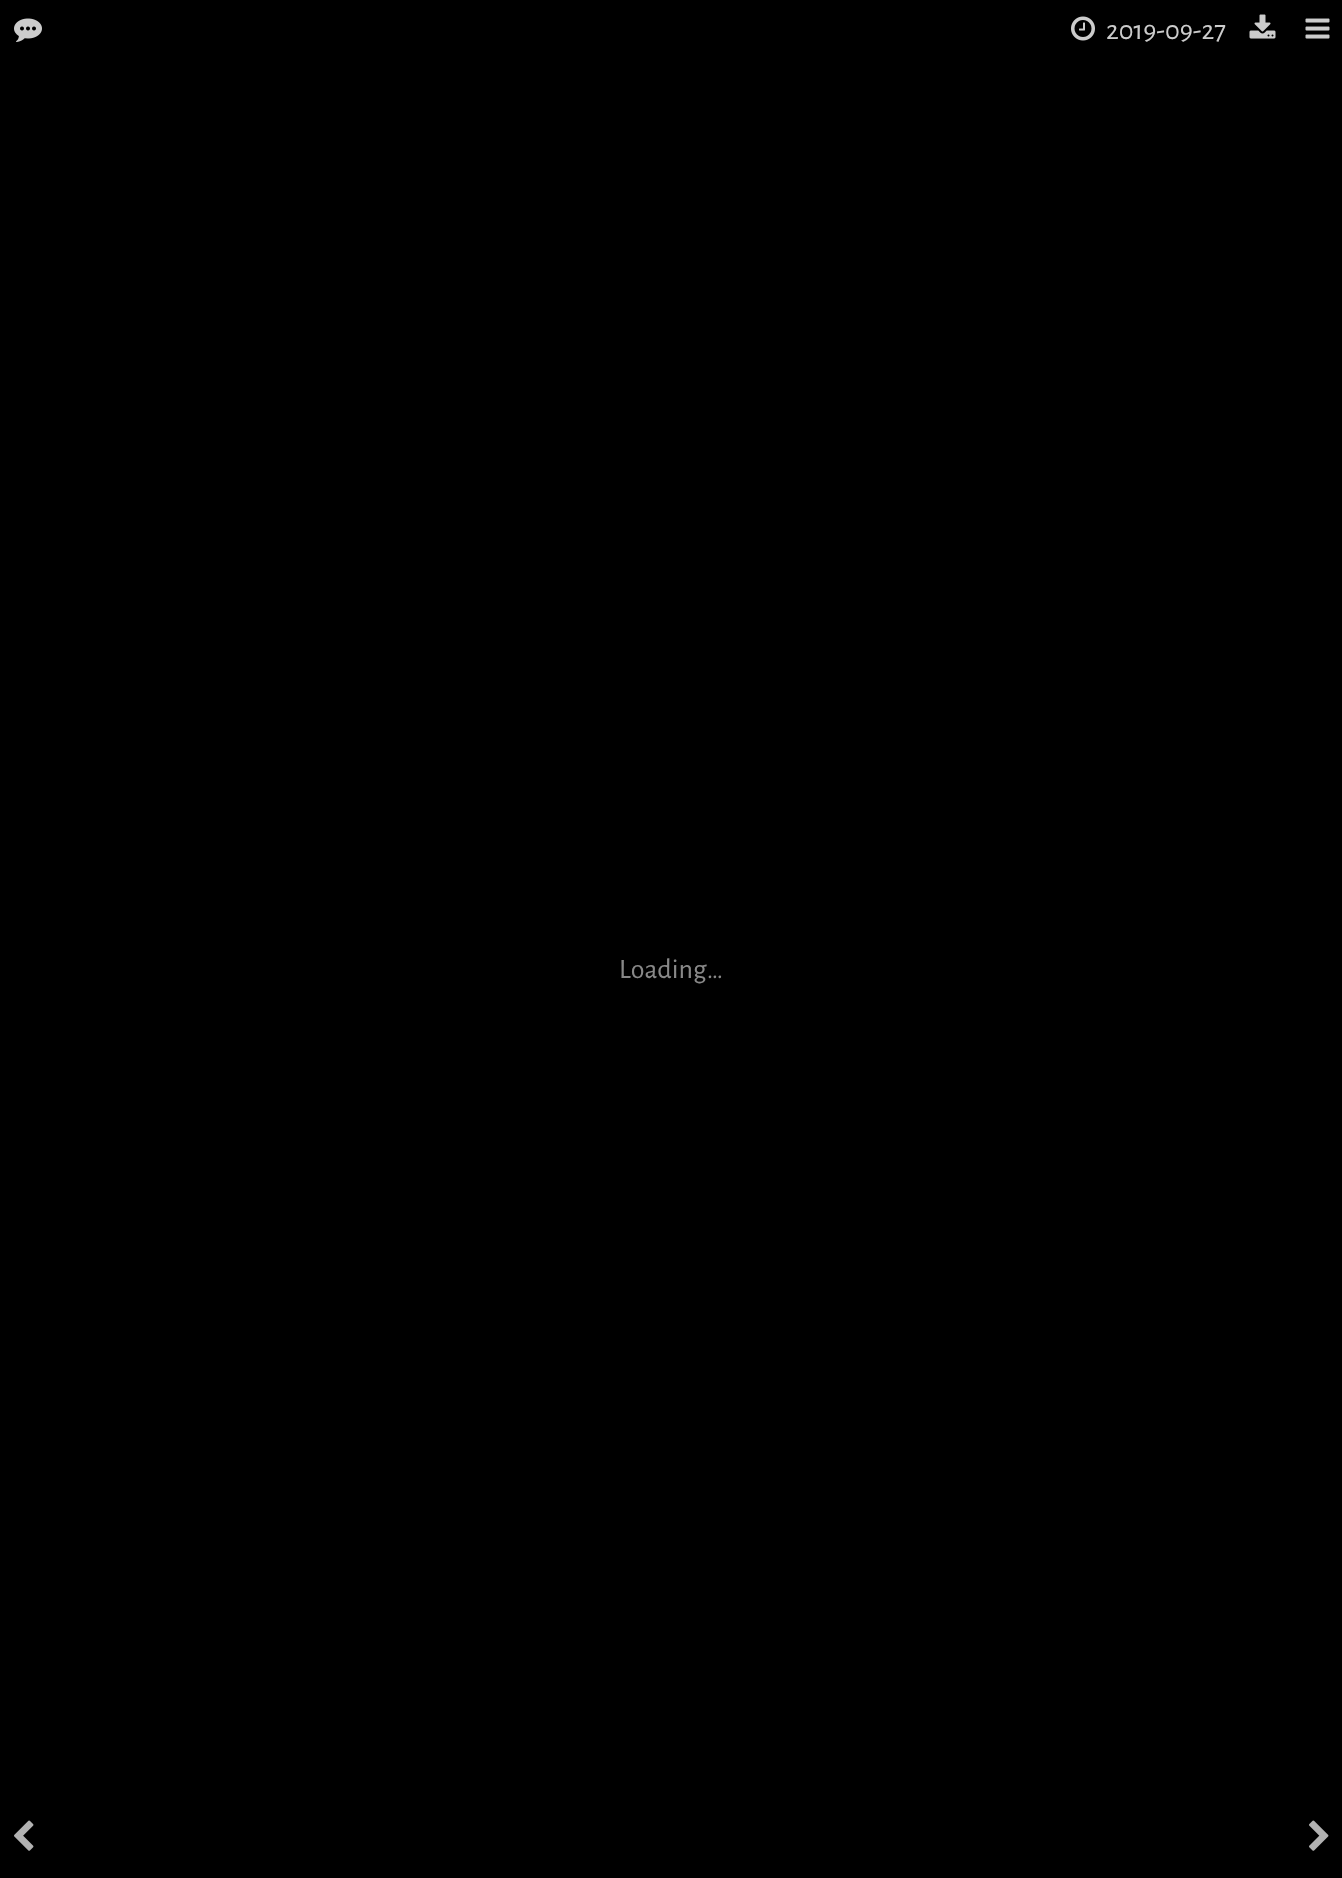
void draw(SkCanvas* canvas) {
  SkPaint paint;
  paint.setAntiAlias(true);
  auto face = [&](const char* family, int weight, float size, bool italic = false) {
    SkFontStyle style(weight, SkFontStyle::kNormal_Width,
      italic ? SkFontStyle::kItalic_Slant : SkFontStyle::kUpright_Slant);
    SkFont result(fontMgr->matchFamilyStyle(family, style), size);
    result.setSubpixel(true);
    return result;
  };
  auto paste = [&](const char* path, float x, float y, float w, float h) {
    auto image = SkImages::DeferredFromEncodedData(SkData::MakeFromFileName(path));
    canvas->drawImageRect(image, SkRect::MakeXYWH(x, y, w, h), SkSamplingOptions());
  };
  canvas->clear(0xff000000);
  paste("img/1.png", 14, 18, 28, 24);
  paste("img/2.png", 1071, 16, 24, 25);
  paste("img/3.png", 1249, 14, 27, 25);
  paste("img/4.png", 1305, 18, 25, 21);
  paste("img/5.png", 14, 1820, 20, 31);
  paste("img/6.png", 1309, 1820, 20, 31);
  auto f0 = face("Alegreya Sans", 400, 28);
  paint.setColor(0xffcccccc);
  canvas->drawString("2019-09-27", 1106, 39, f0, paint);
  paint.setColor(0xff888888);
  canvas->drawString("Loading…", 619, 978, f0, paint);
}
